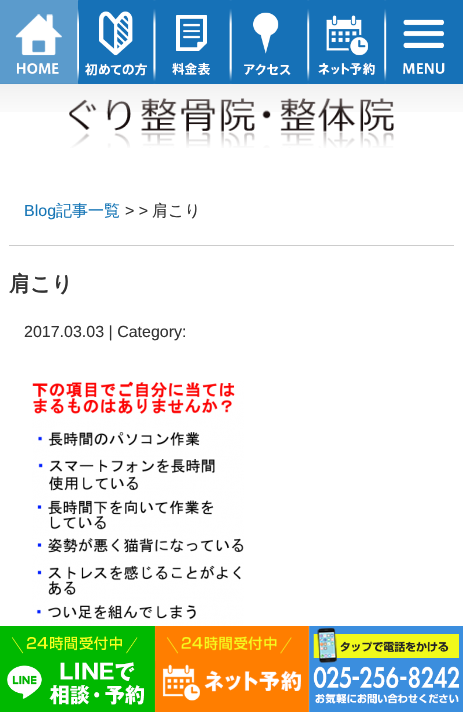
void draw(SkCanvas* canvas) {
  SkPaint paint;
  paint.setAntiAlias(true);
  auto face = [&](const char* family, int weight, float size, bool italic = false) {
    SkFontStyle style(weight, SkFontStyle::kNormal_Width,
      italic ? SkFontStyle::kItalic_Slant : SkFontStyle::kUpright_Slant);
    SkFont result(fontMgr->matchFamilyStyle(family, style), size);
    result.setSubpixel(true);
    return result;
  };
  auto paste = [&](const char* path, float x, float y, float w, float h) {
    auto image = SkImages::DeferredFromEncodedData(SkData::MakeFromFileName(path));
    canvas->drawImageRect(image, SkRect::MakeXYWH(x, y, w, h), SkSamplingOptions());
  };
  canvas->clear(0xffffffff);
  paste("img/7.png", 0, 83, 463, 29);
  paste("img/1.png", 0, 0, 78, 84);
  paste("img/2.png", 78, 0, 77, 84);
  paste("img/3.png", 155, 0, 76, 84);
  paste("img/4.png", 231, 0, 77, 84);
  paste("img/5.png", 308, 0, 77, 84);
  paste("img/6.png", 385, 0, 78, 84);
  paste("img/8.png", 69, 98, 325, 50);
  paint.setColor(0xffcccccc);
  canvas->drawRect(SkRect::MakeXYWH(9, 245, 445, 1), paint);
  paste("img/9.png", 32, 381, 212, 292);
  paste("img/10.png", 0, 626, 155, 86);
  paste("img/11.png", 154, 626, 155, 86);
  paste("img/12.png", 309, 626, 154, 86);
  auto f0 = face("Liberation Sans", 400, 16);
  paint.setColor(0xff1776b6);
  canvas->drawString("Blog", 24, 216, f0, paint);
  auto f1 = face("WenQuanYi Zen Hei", 500, 16);
  canvas->drawString("記事一覧", 56, 216, f1, paint);
  paint.setColor(0xff333333);
  canvas->drawString("> >", 125, 216, f0, paint);
  canvas->drawString("肩こり", 152, 216, f1, paint);
  auto f2 = face("WenQuanYi Zen Hei", 700, 21);
  canvas->drawString("肩こり", 9, 291, f2, paint);
  canvas->drawString("2017.03.03 | Category:", 24, 337, f0, paint);
}
